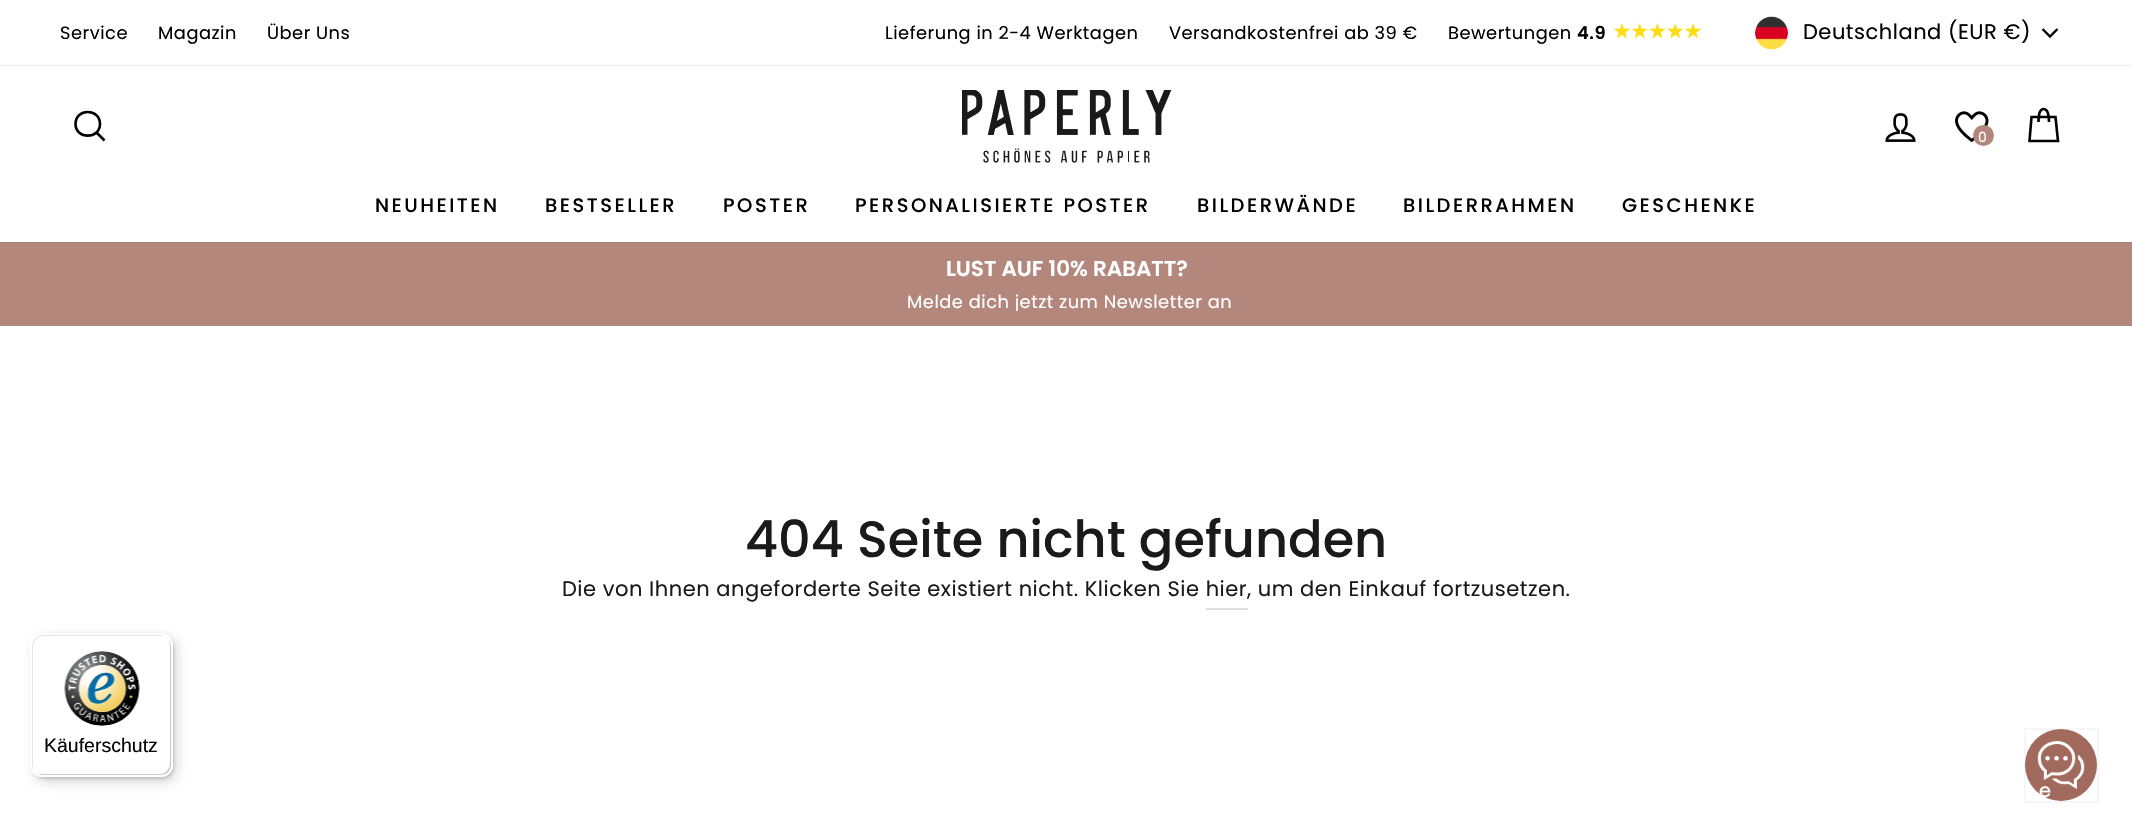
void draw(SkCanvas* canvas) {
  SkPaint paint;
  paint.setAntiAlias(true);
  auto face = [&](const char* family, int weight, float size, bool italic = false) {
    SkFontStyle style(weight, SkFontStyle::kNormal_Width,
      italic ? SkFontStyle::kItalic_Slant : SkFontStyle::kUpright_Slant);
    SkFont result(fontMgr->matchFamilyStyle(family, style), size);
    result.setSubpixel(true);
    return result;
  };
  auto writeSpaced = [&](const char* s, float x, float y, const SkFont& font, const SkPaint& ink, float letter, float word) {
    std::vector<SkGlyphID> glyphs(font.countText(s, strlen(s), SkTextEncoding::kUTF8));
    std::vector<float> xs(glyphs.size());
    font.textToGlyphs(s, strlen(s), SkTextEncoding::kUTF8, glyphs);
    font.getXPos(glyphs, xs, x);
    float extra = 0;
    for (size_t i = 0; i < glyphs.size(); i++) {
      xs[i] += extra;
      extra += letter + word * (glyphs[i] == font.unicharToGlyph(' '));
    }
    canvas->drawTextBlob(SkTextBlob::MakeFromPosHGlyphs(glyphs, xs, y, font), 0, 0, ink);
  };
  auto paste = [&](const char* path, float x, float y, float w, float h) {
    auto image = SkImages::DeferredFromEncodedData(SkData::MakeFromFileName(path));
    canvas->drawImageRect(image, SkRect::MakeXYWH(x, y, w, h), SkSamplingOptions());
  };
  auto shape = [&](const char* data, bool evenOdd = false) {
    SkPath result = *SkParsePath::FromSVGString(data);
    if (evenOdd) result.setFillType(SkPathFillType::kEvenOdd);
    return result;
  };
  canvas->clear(0xffffffff);
  paste("img/1.png", 1613, 23, 89, 16);
  paste("img/2.png", 1755, 16, 33, 34);
  paint.setStroke(true);
  paint.setStrokeWidth(2.4f);
  paint.setColor(0xff000000);
  canvas->drawPath(shape("M2042.5 29L2050 36.5L2057.5 29"), paint);
  paint.setStroke(false);
  paint.setColor(0xffb4877d);
  canvas->drawRect(SkRect::MakeXYWH(0, 242, 2132, 84), paint);
  paint.setColor(0x33000000);
  paint.setMaskFilter(SkMaskFilter::MakeBlur(kNormal_SkBlurStyle, 1));
  canvas->drawRect(SkRect::MakeXYWH(0, 66, 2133, 176), paint);
  paint.setMaskFilter(nullptr);
  paint.setColor(0xffffffff);
  canvas->drawRect(SkRect::MakeXYWH(0, 66, 2132, 176), paint);
  paint.setStroke(true);
  paint.setStrokeWidth(2.6f);
  paint.setColor(0xff000000);
  canvas->drawPath(shape("M100 124C100 139.5 75.5 139.5 75.5 124C75.5 108 100 108 100 124ZM104.5 140.5L96.5 132.5"), paint);
  paste("img/3.png", 962, 90, 210, 73);
  paste("img/4.png", 1885, 113, 31, 29);
  paste("img/5.png", 1955, 111, 34, 32);
  paint.setStroke(false);
  paint.setColor(0xffb4877d);
  canvas->drawCircle(1983.5f, 135.5f, 10.5f, paint);
  paint.setStroke(true);
  paint.setColor(0xff000000);
  canvas->drawPath(shape("M2038.5 122C2038.5 111.5 2040.5 109 2043.5 109C2046.5 109 2049 111.5 2049 122M2031.5 117H2055.5L2058 141H2029.5Z"), paint);
  paint.setStroke(false);
  paint.setColor(0xffdddddd);
  canvas->drawRect(SkRect::MakeXYWH(1206, 608, 42, 2), paint);
  paint.setColor(0x26000000);
  paint.setMaskFilter(SkMaskFilter::MakeBlur(kNormal_SkBlurStyle, 6));
  canvas->drawRoundRect(SkRect::MakeXYWH(35, 638, 142, 144), 12, 12, paint);
  paint.setMaskFilter(nullptr);
  paint.setMaskFilter(SkMaskFilter::MakeBlur(kNormal_SkBlurStyle, 1.5f));
  canvas->drawRoundRect(SkRect::MakeXYWH(32, 635, 142, 144), 12, 12, paint);
  paint.setMaskFilter(nullptr);
  paint.setColor(0xffffffff);
  canvas->drawRoundRect(SkRect::MakeXYWH(30, 633, 143, 144), 12, 12, paint);
  paint.setColor(0xffe6e6e6);
  canvas->drawPath(shape("M44 636H162L166 637C164 636 162 635 160 635H43C37 635 32 640 32 646V765C32 768 34 771 36 773C34 771 33 769 33 766V646C33 641 38 636 44 636Z"), paint);
  paint.setColor(0xffcccccc);
  canvas->drawPath(shape("M35 772C37 775 40 776 43 776H160C166 776 171 771 171 765V646C171 644 170 642 169 640L170 644V764C170 769 165 774 159 774H40C38 774 36 773 35 772Z"), paint);
  paint.setColor(0x33323232);
  canvas->drawPath(shape("M37 774C39 775 41 776 43 776H160C166 776 171 771 171 765V646C171 644 170 642 169 640L170 644V764C170 770 165 775 160 775H41Z"), paint);
  paint.setColor(0x4dffffff);
  canvas->drawPath(shape("M37 774C39 775 41 776 43 776H160C166 776 171 771 171 765V646C171 644 170 642 169 640L170 644V764C170 770 166 775 160 775H41Z"), paint);
  paint.setStroke(true);
  paint.setStrokeWidth(2);
  paint.setColor(0xffffffff);
  canvas->drawRoundRect(SkRect::MakeXYWH(31, 634, 141, 142), 11, 11, paint);
  paste("img/6.png", 64, 651, 76, 75);
  paint.setColor(0x0a161a1e);
  canvas->drawRect(SkRect::MakeXYWH(2025, 729, 73, 73), paint);
  paint.setStroke(false);
  paint.setColor(0xffa26a5d);
  canvas->drawCircle(2061, 765, 36, paint);
  paste("img/7.png", 2037, 741, 48, 48);
  auto f0 = face("Poppins", 400, 17.8f);
  paint.setColor(0xff000000);
  {
    const struct { const char* s; float x, y; } items[] = {
      {"Service", 60, 39},
      {"Magazin", 158, 39},
      {"Über Uns", 267, 39},
      {"Lieferung in 2-4 Werktagen", 885, 39},
      {"Versandkostenfrei ab 39 €", 1169, 39},
      {"Bewertungen", 1448, 39},
    };
    for (auto [s, x, y] : items) {
      writeSpaced(s, x, y, f0, paint, 0.52f, 0);
    }
  }
  auto f1 = face("Poppins", 600, 17.8f);
  writeSpaced("4.9", 1577, 39, f1, paint, 0.52f, 0);
  auto f2 = face("Poppins", 400, 21);
  writeSpaced("Deutschland (EUR €)", 1803, 39, f2, paint, 0.52f, 0);
  auto f3 = face("Poppins", 400, 14);
  paint.setColor(0xffffffff);
  writeSpaced("0", 1978, 142, f3, paint, 0.52f, 0);
  auto f4 = face("Poppins", 500, 19.5f);
  paint.setColor(0xff000000);
  {
    const struct { const char* s; float x, y; } items[] = {
      {"NEUHEITEN", 375, 212},
      {"BESTSELLER", 545, 212},
      {"POSTER", 723, 212},
      {"PERSONALISIERTE POSTER", 855, 212},
      {"BILDERWÄNDE", 1197, 212},
      {"BILDERRAHMEN", 1403, 212},
      {"GESCHENKE", 1622, 212},
    };
    for (auto [s, x, y] : items) {
      writeSpaced(s, x, y, f4, paint, 2.5f, 0);
    }
  }
  auto f5 = face("Poppins", 600, 21.5f);
  paint.setColor(0xffffffff);
  canvas->drawString("LUST AUF 10% RABATT?", 946, 276, f5, paint);
  canvas->save();
  canvas->clipRect(SkRect::MakeXYWH(60, 251, 2013, 60));
  writeSpaced("Melde dich jetzt zum Newsletter an", 907, 308, f0, paint, 0.52f, 0);
  canvas->restore();
  auto f6 = face("Poppins", 500, 51);
  paint.setColor(0xff1a1a1a);
  canvas->drawString("404 Seite nicht gefunden", 745, 557, f6, paint);
  writeSpaced("Die von Ihnen angeforderte Seite existiert nicht. Klicken Sie hier", 562, 596, f2, paint, 0.52f, 0);
  writeSpaced(", um den Einkauf fortzusetzen.", 1247, 596, f2, paint, 0.52f, 0);
  auto f7 = face("Liberation Sans", 400, 19.5f);
  paint.setColor(0xff000000);
  canvas->drawString("Käuferschutz", 44, 752, f7, paint);
  auto f8 = face("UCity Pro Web", 400, 21);
  paint.setColor(0xffffffff);
  writeSpaced("e", 2039, 797, f8, paint, 0.52f, 0);
}
